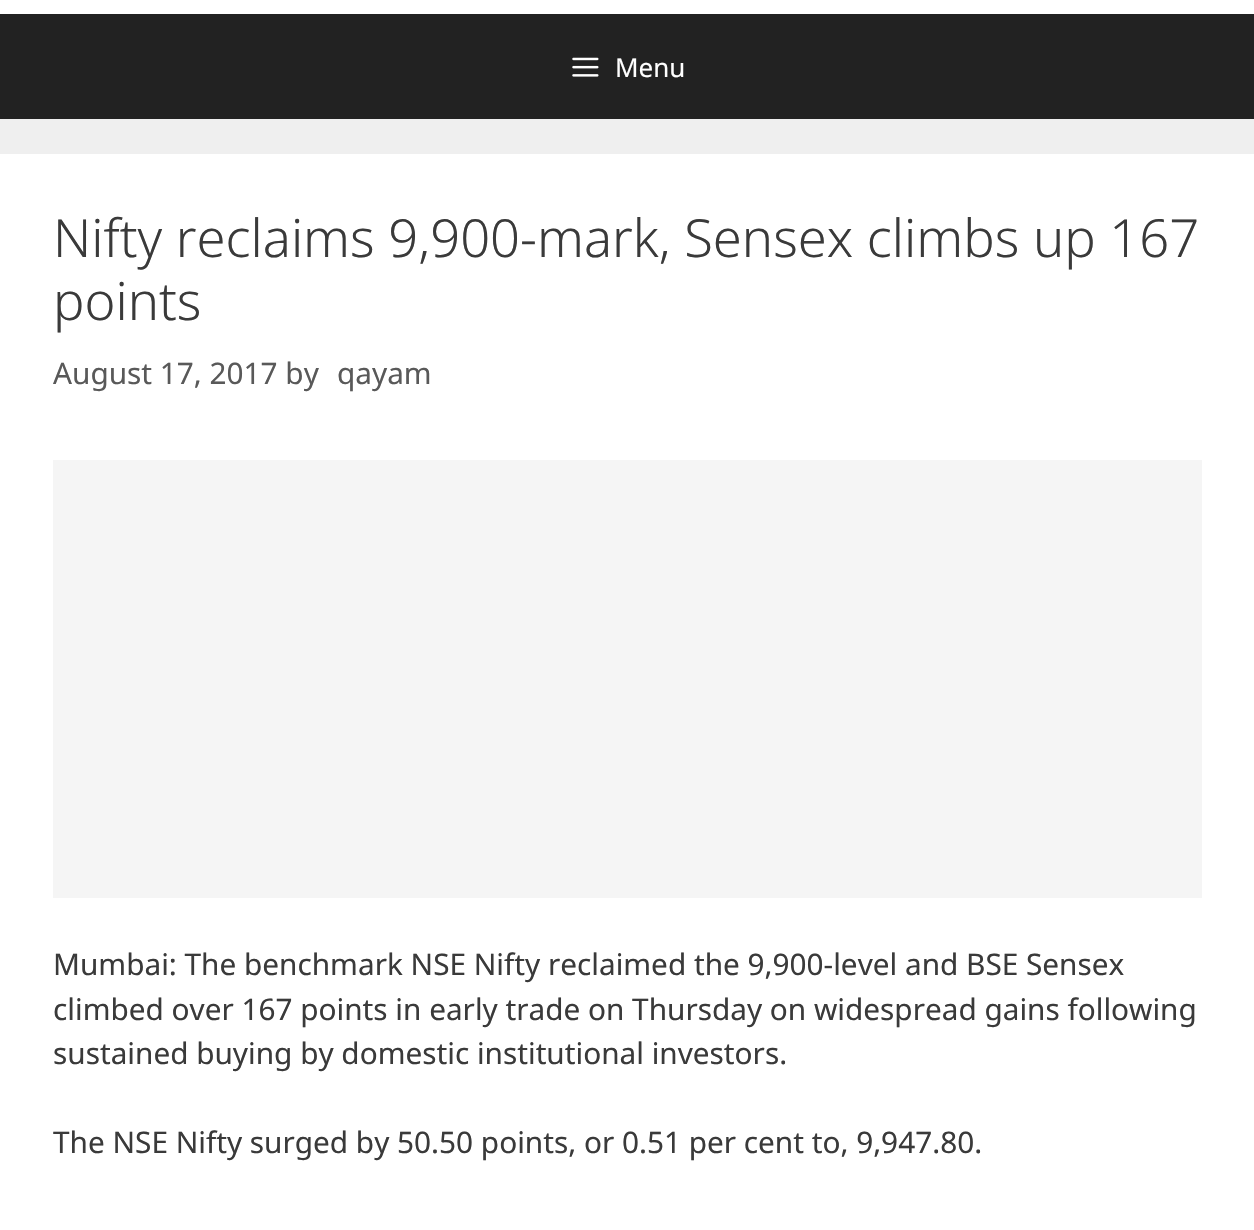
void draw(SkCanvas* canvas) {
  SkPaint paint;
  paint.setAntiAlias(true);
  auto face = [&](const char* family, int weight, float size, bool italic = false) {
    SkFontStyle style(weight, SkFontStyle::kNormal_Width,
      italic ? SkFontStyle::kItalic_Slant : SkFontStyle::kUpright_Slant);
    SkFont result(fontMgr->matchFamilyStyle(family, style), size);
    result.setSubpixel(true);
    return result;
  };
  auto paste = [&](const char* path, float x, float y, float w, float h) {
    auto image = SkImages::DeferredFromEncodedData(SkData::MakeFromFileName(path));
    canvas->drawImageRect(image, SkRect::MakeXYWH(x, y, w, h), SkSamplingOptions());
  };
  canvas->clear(0xffefefef);
  paint.setColor(0xffffffff);
  canvas->drawRect(SkRect::MakeXYWH(0, 0, 1254, 14), paint);
  paint.setColor(0xff222222);
  canvas->drawRect(SkRect::MakeXYWH(0, 14, 1254, 105), paint);
  paste("img/1.png", 572, 57, 27, 20);
  paint.setColor(0xffffffff);
  canvas->drawRect(SkRect::MakeXYWH(0, 154, 1254, 1076), paint);
  paint.setColor(0xfff5f5f5);
  canvas->drawRect(SkRect::MakeXYWH(53, 460, 1149, 438), paint);
  auto f0 = face("Noto Sans", 400, 26);
  paint.setColor(0xffffffff);
  canvas->drawString("Menu", 615, 77, f0, paint);
  auto f1 = face("Noto Sans", 300, 52.5f);
  paint.setColor(0xff3a3a3a);
  canvas->drawString("Nifty reclaims 9,900-mark, Sensex climbs up 167", 53, 257, f1, paint);
  canvas->drawString("points", 53, 320, f1, paint);
  auto f2 = face("Noto Sans", 400, 29.75f);
  paint.setColor(0xff595959);
  canvas->drawString("August 17, 2017 by", 53, 384, f2, paint);
  canvas->drawString("qayam", 337, 384, f2, paint);
  paint.setColor(0xff3a3a3a);
  {
    const struct { const char* s; float x, y; } items[] = {
      {"Mumbai: The benchmark NSE Nifty reclaimed the 9,900-level and BSE Sensex", 53, 975},
      {"climbed over 167 points in early trade on Thursday on widespread gains following", 53, 1020},
      {"sustained buying by domestic institutional investors.", 53, 1064},
      {"The NSE Nifty surged by 50.50 points, or 0.51 per cent to, 9,947.80.", 53, 1153},
    };
    for (auto [s, x, y] : items) {
      canvas->drawString(s, x, y, f2, paint);
    }
  }
}
